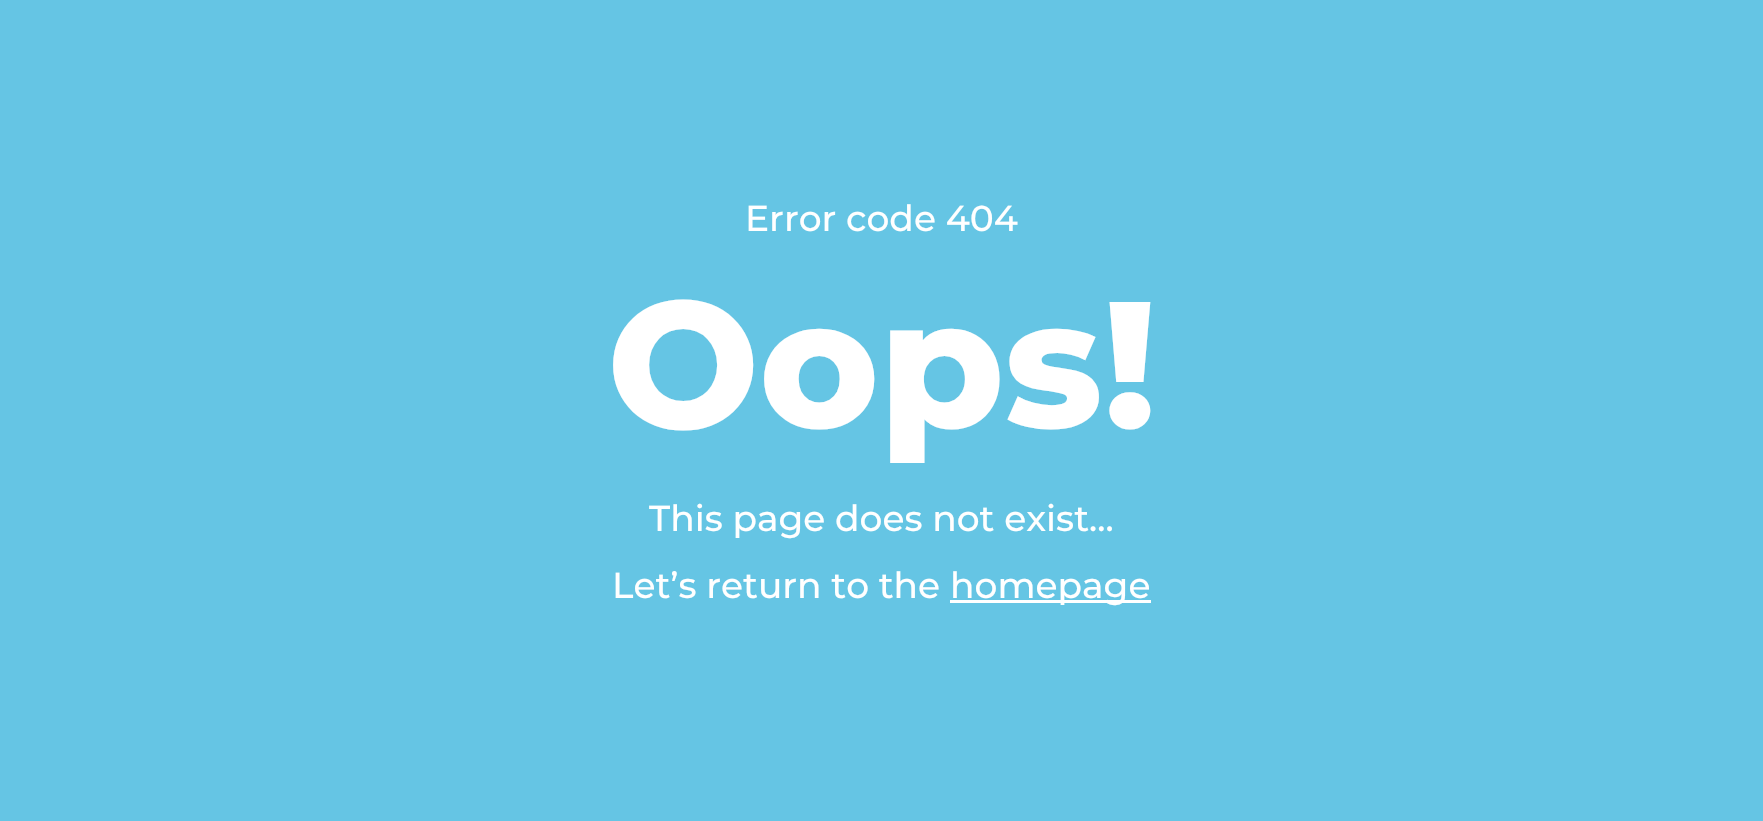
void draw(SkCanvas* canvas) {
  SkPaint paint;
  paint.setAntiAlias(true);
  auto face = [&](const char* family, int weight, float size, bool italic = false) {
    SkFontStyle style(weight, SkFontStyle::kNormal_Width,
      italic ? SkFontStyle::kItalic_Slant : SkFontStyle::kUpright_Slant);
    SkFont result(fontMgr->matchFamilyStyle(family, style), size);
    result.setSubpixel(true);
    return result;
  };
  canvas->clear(0xff65c5e4);
  paint.setColor(0xffffffff);
  canvas->drawRect(SkRect::MakeXYWH(950, 600, 201, 3), paint);
  auto f0 = face("Montserrat", 500, 36);
  canvas->drawString("Error code 404", 745, 231, f0, paint);
  auto f1 = face("Montserrat", 800, 180);
  canvas->drawString("Oops!", 607, 428, f1, paint);
  {
    const struct { const char* s; float x, y; } items[] = {
      {"This page does not exist...", 649, 531},
      {"Let’s return to the", 612, 598},
      {"homepage", 950, 598},
    };
    for (auto [s, x, y] : items) {
      canvas->drawString(s, x, y, f0, paint);
    }
  }
}
